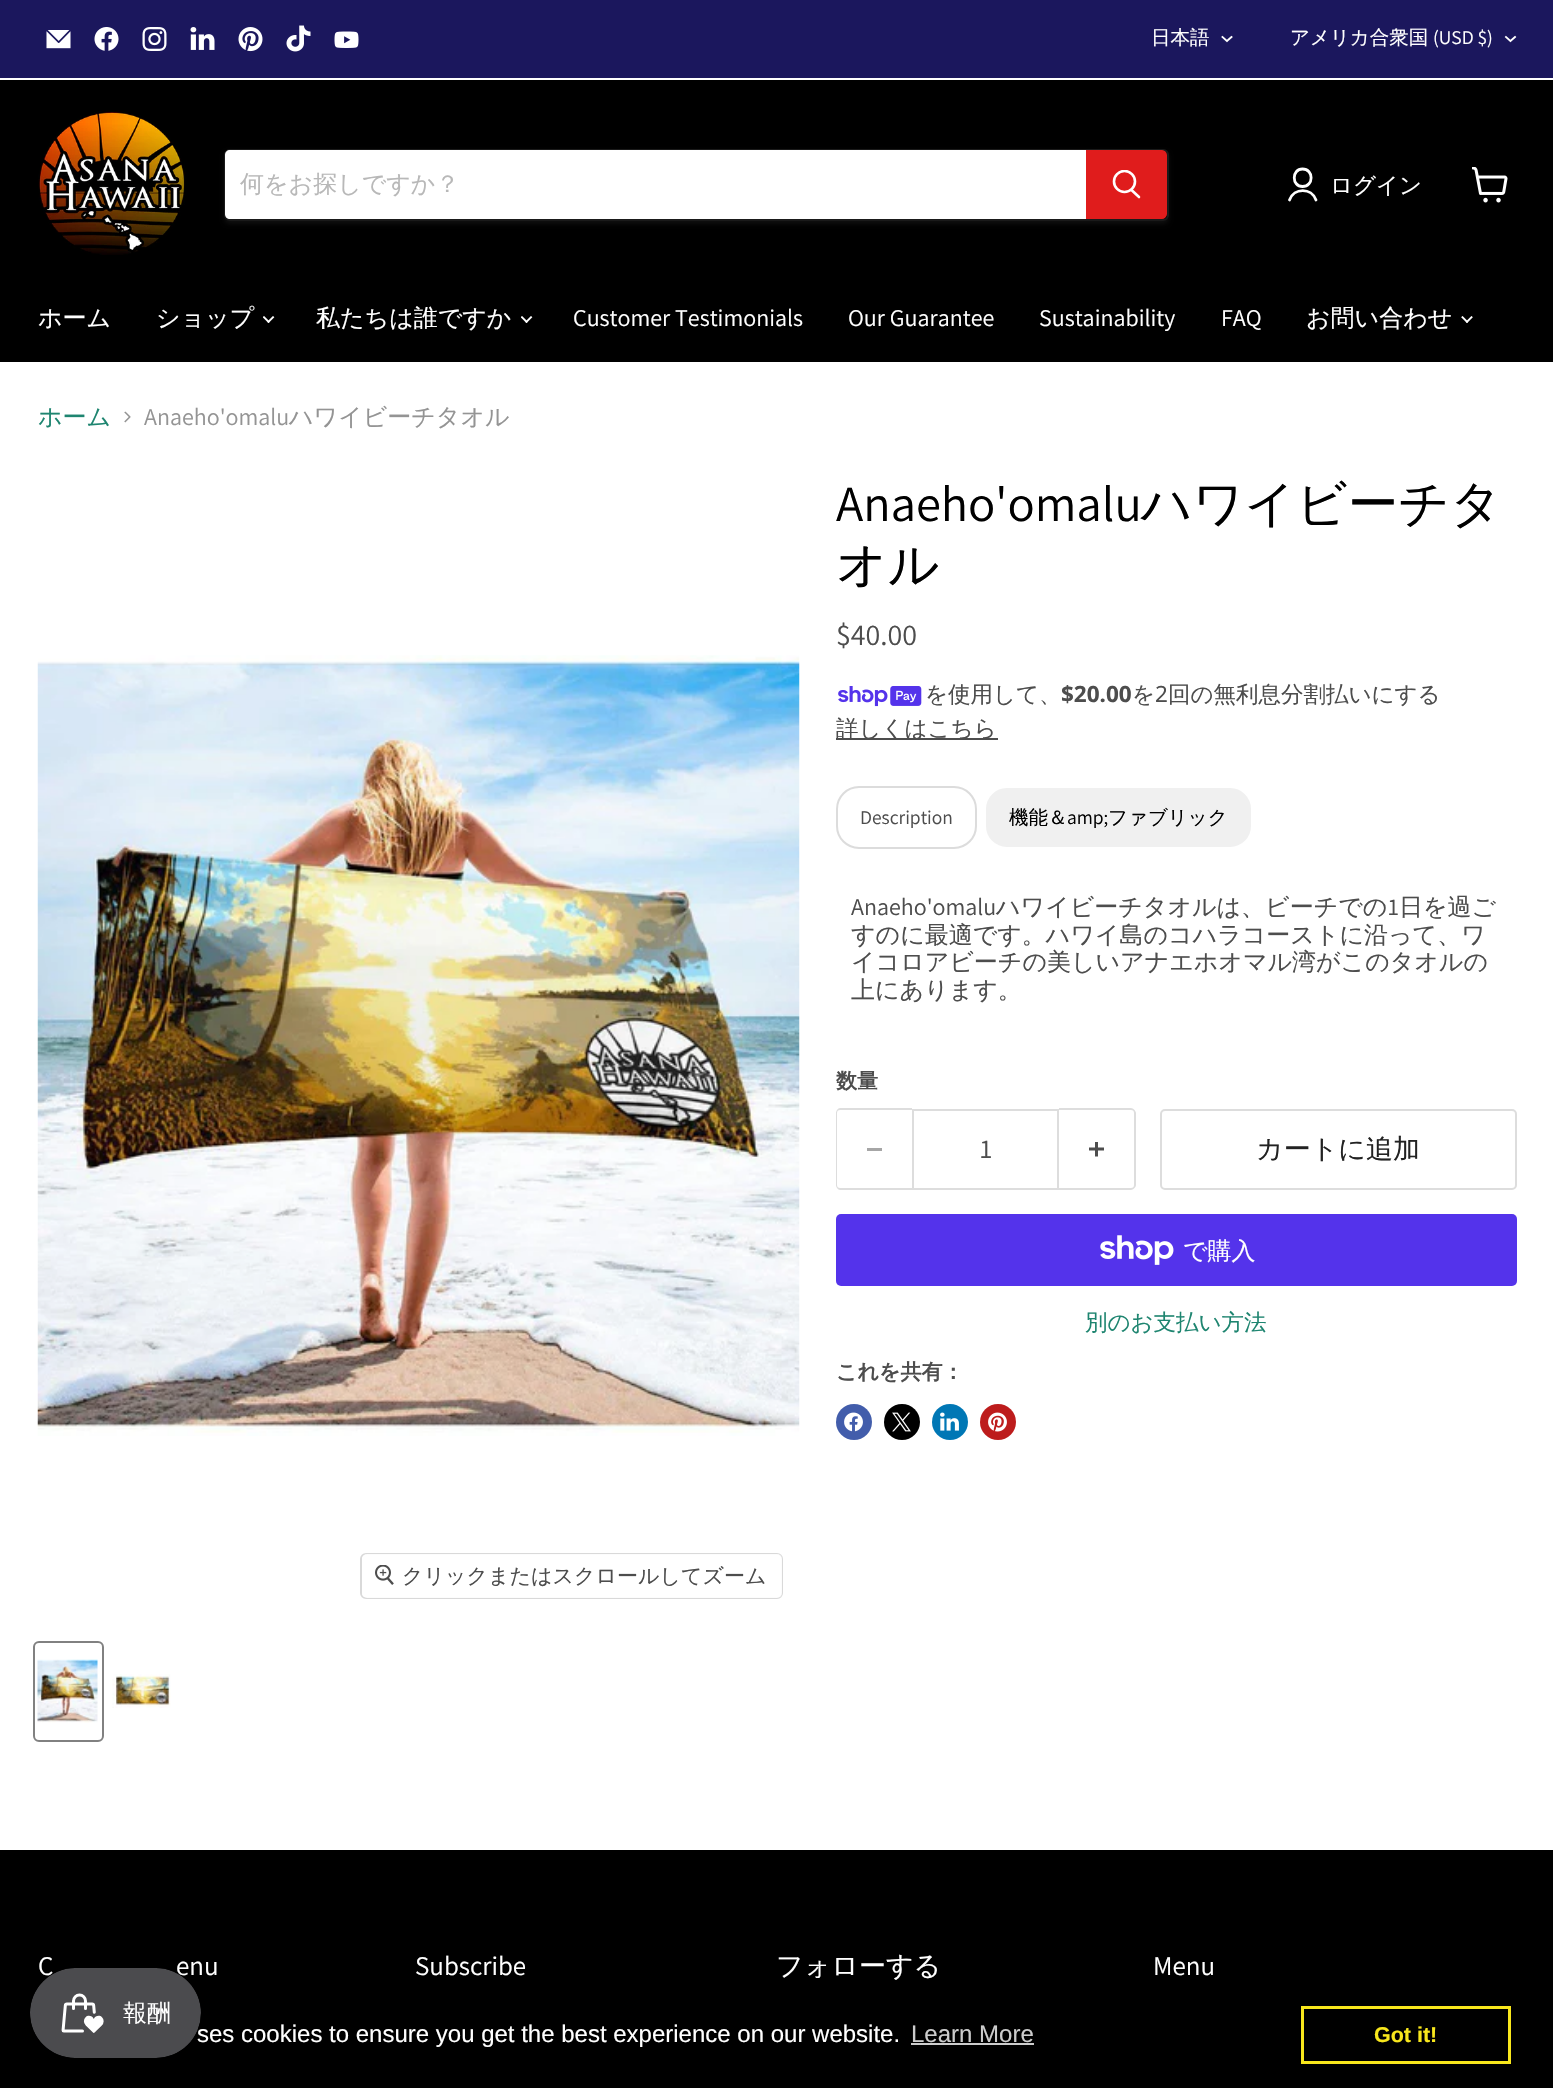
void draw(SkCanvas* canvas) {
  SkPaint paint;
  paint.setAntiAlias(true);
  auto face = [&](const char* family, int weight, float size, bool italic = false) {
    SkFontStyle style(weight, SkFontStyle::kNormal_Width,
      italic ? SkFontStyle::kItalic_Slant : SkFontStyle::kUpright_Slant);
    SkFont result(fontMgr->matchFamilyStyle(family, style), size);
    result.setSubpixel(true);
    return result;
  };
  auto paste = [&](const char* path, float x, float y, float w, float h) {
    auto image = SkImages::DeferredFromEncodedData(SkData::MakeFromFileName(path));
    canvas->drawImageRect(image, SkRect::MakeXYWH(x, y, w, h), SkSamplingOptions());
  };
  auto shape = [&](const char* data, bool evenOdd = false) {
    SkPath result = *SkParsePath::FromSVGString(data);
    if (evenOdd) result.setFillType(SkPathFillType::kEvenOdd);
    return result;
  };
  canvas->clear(0xffffffff);
  paint.setColor(0xff1b175d);
  canvas->drawRect(SkRect::MakeXYWH(0, 0, 1553, 78), paint);
  paste("img/1.png", 46, 30, 25, 19);
  paste("img/2.png", 94, 27, 25, 24);
  paste("img/3.png", 142, 27, 25, 24);
  paste("img/4.png", 190, 27, 25, 23);
  paste("img/5.png", 238, 27, 25, 25);
  paste("img/6.png", 286, 25, 25, 27);
  paste("img/7.png", 334, 31, 25, 17);
  paint.setStroke(true);
  paint.setStrokeWidth(1.9f);
  paint.setStrokeCap(SkPaint::kSquare_Cap);
  paint.setColor(0xffffffff);
  canvas->drawPath(shape("M1227 41L1231.5 37M1227 41L1222.5 37"), paint);
  canvas->drawPath(shape("M1510.5 41L1515 37M1510.5 41L1506 37"), paint);
  paint.setStroke(false);
  paint.setColor(0xff000000);
  canvas->drawRect(SkRect::MakeXYWH(0, 80, 1553, 282), paint);
  paste("img/8.png", 38, 110, 148, 145);
  canvas->save();
  canvas->clipPath(shape("M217 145H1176V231H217ZM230 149H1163C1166.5 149 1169 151.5 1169 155V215C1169 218.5 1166.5 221 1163 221H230C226.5 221 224 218.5 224 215V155C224 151.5 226.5 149 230 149Z", true), true);
  paint.setColor(0x1c808080);
  paint.setMaskFilter(SkMaskFilter::MakeBlur(kNormal_SkBlurStyle, 2));
  canvas->drawRoundRect(SkRect::MakeXYWH(224, 152, 945, 72), 6, 6, paint);
  paint.setMaskFilter(nullptr);
  canvas->restore();
  paint.setStroke(true);
  paint.setStrokeWidth(2);
  paint.setStrokeCap(SkPaint::kButt_Cap);
  paint.setColor(0x33808080);
  canvas->drawRoundRect(SkRect::MakeXYWH(225, 150, 943, 70), 5, 5, paint);
  paint.setStroke(false);
  paint.setColor(0xffffffff);
  canvas->drawPath(shape("M230 150H1086V219H230C227 219 225 217 225 214V155C225 152 227 150 230 150Z"), paint);
  paint.setColor(0xffe01c1c);
  canvas->drawPath(shape("M1087 151H1162C1164 151 1166 153 1166 155V214C1166 216 1164 218 1162 218H1087Z"), paint);
  paint.setStroke(true);
  canvas->drawPath(shape("M1087 151H1162C1164 151 1166 153 1166 155V214C1166 216 1164 218 1162 218H1087Z"), paint);
  paint.setStrokeWidth(2.6f);
  paint.setStrokeCap(SkPaint::kRound_Cap);
  paint.setColor(0xffffffff);
  canvas->drawPath(shape("M1139 197L1131.5 190"), paint);
  canvas->save();
  canvas->clipRect(SkRect::MakeXYWH(1112, 170, 30, 31));
  paint.setStrokeCap(SkPaint::kButt_Cap);
  canvas->drawCircle(1124.5f, 181.5f, 10.5f, paint);
  canvas->restore();
  paint.setStrokeWidth(2.8f);
  paint.setStrokeCap(SkPaint::kRound_Cap);
  paint.setStrokeJoin(SkPaint::kRound_Join);
  canvas->drawPath(shape("M1302.5 186.5C1314 186.5 1314 169 1302.5 169C1291.5 169 1291.5 186.5 1302.5 186.5ZM1316 200C1311.5 187.5 1294 187.5 1289.5 200"), paint);
  paste("img/9.png", 1472, 167, 36, 36);
  paste("img/10.png", 263, 316, 12, 7);
  paste("img/10.png", 521, 316, 12, 7);
  paste("img/11.png", 1461, 316, 12, 7);
  paste("img/12.png", 124, 411, 7, 12);
  paste("img/13.png", 838, 686, 84, 21);
  paint.setStroke(false);
  paint.setColor(0xff4d4d4d);
  canvas->drawRect(SkRect::MakeXYWH(836, 738, 162, 2), paint);
  paint.setStroke(true);
  paint.setStrokeWidth(2);
  paint.setStrokeCap(SkPaint::kButt_Cap);
  paint.setStrokeJoin(SkPaint::kMiter_Join);
  paint.setColor(0xffdcdcdc);
  canvas->drawRoundRect(SkRect::MakeXYWH(837, 787, 139, 61), 22, 22, paint);
  paint.setStroke(false);
  paint.setColor(0xfff0f0f0);
  canvas->drawRoundRect(SkRect::MakeXYWH(985, 787, 267, 61), 22, 22, paint);
  paint.setStroke(true);
  paint.setColor(0xffffffff);
  canvas->drawRoundRect(SkRect::MakeXYWH(985, 787, 267, 61), 22, 22, paint);
  paint.setStroke(false);
  paint.setColor(0xffdddddd);
  canvas->drawPath(shape("M840 1108H912V1190H840C838 1190 836 1187 836 1185V1113C836 1111 838 1108 840 1108ZM840 1110H912V1188H840C838 1188 837 1187 837 1185V1113C837 1111 838 1110 840 1110Z", true), paint);
  paint.setColor(0xffa6a6a6);
  canvas->drawRect(SkRect::MakeXYWH(867, 1148, 15, 3), paint);
  paint.setStroke(true);
  paint.setColor(0xffdddddd);
  canvas->drawRect(SkRect::MakeXYWH(913, 1110, 145, 79), paint);
  paint.setStroke(false);
  canvas->drawPath(shape("M1059 1108H1131C1133 1108 1136 1111 1136 1113V1185C1136 1187 1133 1190 1131 1190H1059ZM1059 1110H1131C1133 1110 1134 1111 1134 1113V1185C1134 1187 1133 1188 1131 1188H1059Z", true), paint);
  paste("img/14.png", 1089, 1142, 15, 15);
  paint.setStroke(true);
  canvas->drawRoundRect(SkRect::MakeXYWH(1161, 1110, 355, 79), 4, 4, paint);
  paint.setStroke(false);
  paint.setColor(0xff5433eb);
  canvas->drawRoundRect(SkRect::MakeXYWH(836, 1214, 681, 72), 5, 5, paint);
  paste("img/15.png", 1100, 1235, 74, 30);
  paint.setColor(0xff425dab);
  canvas->drawCircle(854, 1422, 18, paint);
  paste("img/16.png", 844, 1412, 19, 20);
  paint.setColor(0xff000000);
  canvas->drawCircle(902, 1422, 18, paint);
  paste("img/17.png", 892, 1412, 19, 20);
  paint.setColor(0xff0077b5);
  canvas->drawCircle(950, 1422, 18, paint);
  paste("img/18.png", 940, 1412, 19, 19);
  paint.setColor(0xffbd1c1c);
  canvas->drawCircle(998, 1422, 18, paint);
  paste("img/19.png", 988, 1412, 19, 20);
  paste("img/20.png", 37, 655, 763, 781);
  paint.setStroke(true);
  paint.setColor(0xffd9d9d9);
  canvas->drawRoundRect(SkRect::MakeXYWH(361, 1554, 421, 44), 5, 5, paint);
  paint.setStroke(false);
  paint.setColor(0xe6ffffff);
  canvas->drawRoundRect(SkRect::MakeXYWH(362, 1554, 420, 44), 5, 5, paint);
  paste("img/21.png", 375, 1565, 19, 20);
  paint.setStroke(true);
  paint.setColor(0xff818181);
  canvas->drawRoundRect(SkRect::MakeXYWH(34, 1642, 69, 99), 5, 5, paint);
  paste("img/22.png", 37, 1659, 61, 64);
  paste("img/23.png", 112, 1674, 59, 34);
  paint.setStroke(false);
  paint.setColor(0xff000000);
  canvas->drawRect(SkRect::MakeXYWH(0, 1850, 1553, 238), paint);
  paint.setColor(0xffcccccc);
  canvas->drawRect(SkRect::MakeXYWH(911, 2043, 123, 2), paint);
  paint.setStroke(true);
  paint.setStrokeWidth(3);
  paint.setColor(0xfff8e71c);
  canvas->drawRect(SkRect::MakeXYWH(1302.5f, 2007.5f, 207, 55), paint);
  auto f0 = face("WenQuanYi Zen Hei", 500, 19.5f);
  paint.setStroke(false);
  paint.setColor(0xffffffff);
  canvas->drawString("日本語", 1151, 44, f0, paint);
  canvas->drawString("アメリカ合衆国", 1290, 44, f0, paint);
  auto f1 = face("Assistant", 400, 19.5f);
  canvas->drawString("(USD $)", 1433, 44, f1, paint);
  auto f2 = face("WenQuanYi Zen Hei", 500, 24);
  paint.setColor(0xffb8b8b8);
  canvas->drawString("何をお探しですか？", 240, 192, f2, paint);
  auto f3 = face("WenQuanYi Zen Hei", 500, 22.5f);
  paint.setColor(0xffffffff);
  canvas->drawString("ログイン", 1330, 193, f3, paint);
  {
    const struct { const char* s; float x, y; } items[] = {
      {"ホーム", 38, 326},
      {"ショップ", 156, 326},
      {"私たちは誰ですか", 316, 326},
    };
    for (auto [s, x, y] : items) {
      canvas->drawString(s, x, y, f2, paint);
    }
  }
  auto f4 = face("Assistant", 400, 24);
  {
    const struct { const char* s; float x, y; } items[] = {
      {"Customer Testimonials", 573, 326},
      {"Our Guarantee", 848, 326},
      {"Sustainability", 1039, 326},
      {"FAQ", 1221, 326},
    };
    for (auto [s, x, y] : items) {
      canvas->drawString(s, x, y, f4, paint);
    }
  }
  canvas->drawString("お問い合わせ", 1306, 326, f2, paint);
  paint.setColor(0xff1e8570);
  canvas->drawString("ホーム", 38, 425, f2, paint);
  paint.setColor(0xff949494);
  canvas->drawString("Anaeho'omalu", 144, 425, f4, paint);
  canvas->drawString("ハワイビーチタオル", 289, 425, f2, paint);
  auto f5 = face("Assistant", 400, 50.5f);
  paint.setColor(0xff000000);
  canvas->drawString("Anaeho'omalu", 836, 521, f5, paint);
  auto f6 = face("WenQuanYi Zen Hei", 500, 50.5f);
  canvas->drawString("ハワイビーチタ", 1141, 521, f6, paint);
  canvas->drawString("オル", 836, 582, f6, paint);
  auto f7 = face("Assistant", 400, 30);
  paint.setColor(0xff4d4d4d);
  canvas->drawString("$40.00", 836, 645, f7, paint);
  canvas->drawString("を使用して、", 925, 702, f3, paint);
  auto f8 = face("Noto Sans", 700, 22.5f);
  canvas->drawString("$20.00", 1061, 702, f8, paint);
  canvas->drawString("を", 1132, 702, f3, paint);
  auto f9 = face("Noto Sans", 400, 22.5f);
  canvas->drawString("2", 1155, 702, f9, paint);
  canvas->drawString("回の無利息分割払いにする", 1168, 702, f3, paint);
  canvas->drawString("詳しくはこちら", 836, 736, f3, paint);
  canvas->drawString("Description", 860, 824, f1, paint);
  paint.setColor(0xff000000);
  canvas->drawString("機能＆", 1009, 824, f0, paint);
  canvas->drawString("amp;", 1067, 824, f1, paint);
  canvas->drawString("ファブリック", 1108, 824, f0, paint);
  paint.setColor(0xff4d4d4d);
  canvas->drawString("Anaeho'omalu", 851, 915, f4, paint);
  canvas->drawString("ハワイビーチタオルは、ビーチでの", 996, 915, f2, paint);
  canvas->drawString("1", 1388, 915, f4, paint);
  {
    const struct { const char* s; float x, y; } items[] = {
      {"日を過ご", 1399, 915},
      {"すのに最適です。ハワイ島のコハラコーストに沿って、ワ", 851, 943},
      {"イコロアビーチの美しいアナエホオマル湾がこのタオルの", 851, 970},
      {"上にあります。", 851, 998},
    };
    for (auto [s, x, y] : items) {
      canvas->drawString(s, x, y, f2, paint);
    }
  }
  auto f10 = face("WenQuanYi Zen Hei", 700, 21);
  canvas->drawString("数量", 836, 1088, f10, paint);
  auto f11 = face("Assistant", 400, 27);
  canvas->drawString("1", 980, 1158, f11, paint);
  auto f12 = face("WenQuanYi Zen Hei", 500, 27);
  paint.setColor(0xff222222);
  canvas->drawString("カートに追加", 1256, 1158, f12, paint);
  paint.setColor(0xffffffff);
  canvas->drawString("で購入", 1183, 1259, f2, paint);
  paint.setColor(0xff1e8570);
  canvas->drawString("別のお支払い方法", 1085, 1330, f3, paint);
  paint.setColor(0xff4d4d4d);
  canvas->drawString("これを共有：", 836, 1379, f10, paint);
  auto f13 = face("WenQuanYi Zen Hei", 500, 21);
  canvas->drawString("クリックまたはスクロールしてズーム", 402, 1583, f13, paint);
  paint.setColor(0xffffffff);
  {
    const struct { const char* s; float x, y; } items[] = {
      {"C", 38, 1975},
      {"enu", 176, 1975},
      {"Subscribe", 415, 1975},
    };
    for (auto [s, x, y] : items) {
      canvas->drawString(s, x, y, f11, paint);
    }
  }
  canvas->drawString("フォローする", 776, 1975, f12, paint);
  canvas->drawString("Menu", 1153, 1975, f11, paint);
  auto f14 = face("Liberation Sans", 400, 24);
  canvas->drawString("ses cookies to ensure you get the best experience on our website.", 197, 2042, f14, paint);
  paste("img/24.png", 30, 1968, 171, 90);
  paint.setColor(0xffcccccc);
  canvas->drawString("Learn More", 911, 2042, f14, paint);
  auto f15 = face("Liberation Sans", 700, 21.5f);
  paint.setColor(0xfff8e71c);
  canvas->drawString("Got it!", 1374, 2042, f15, paint);
}
